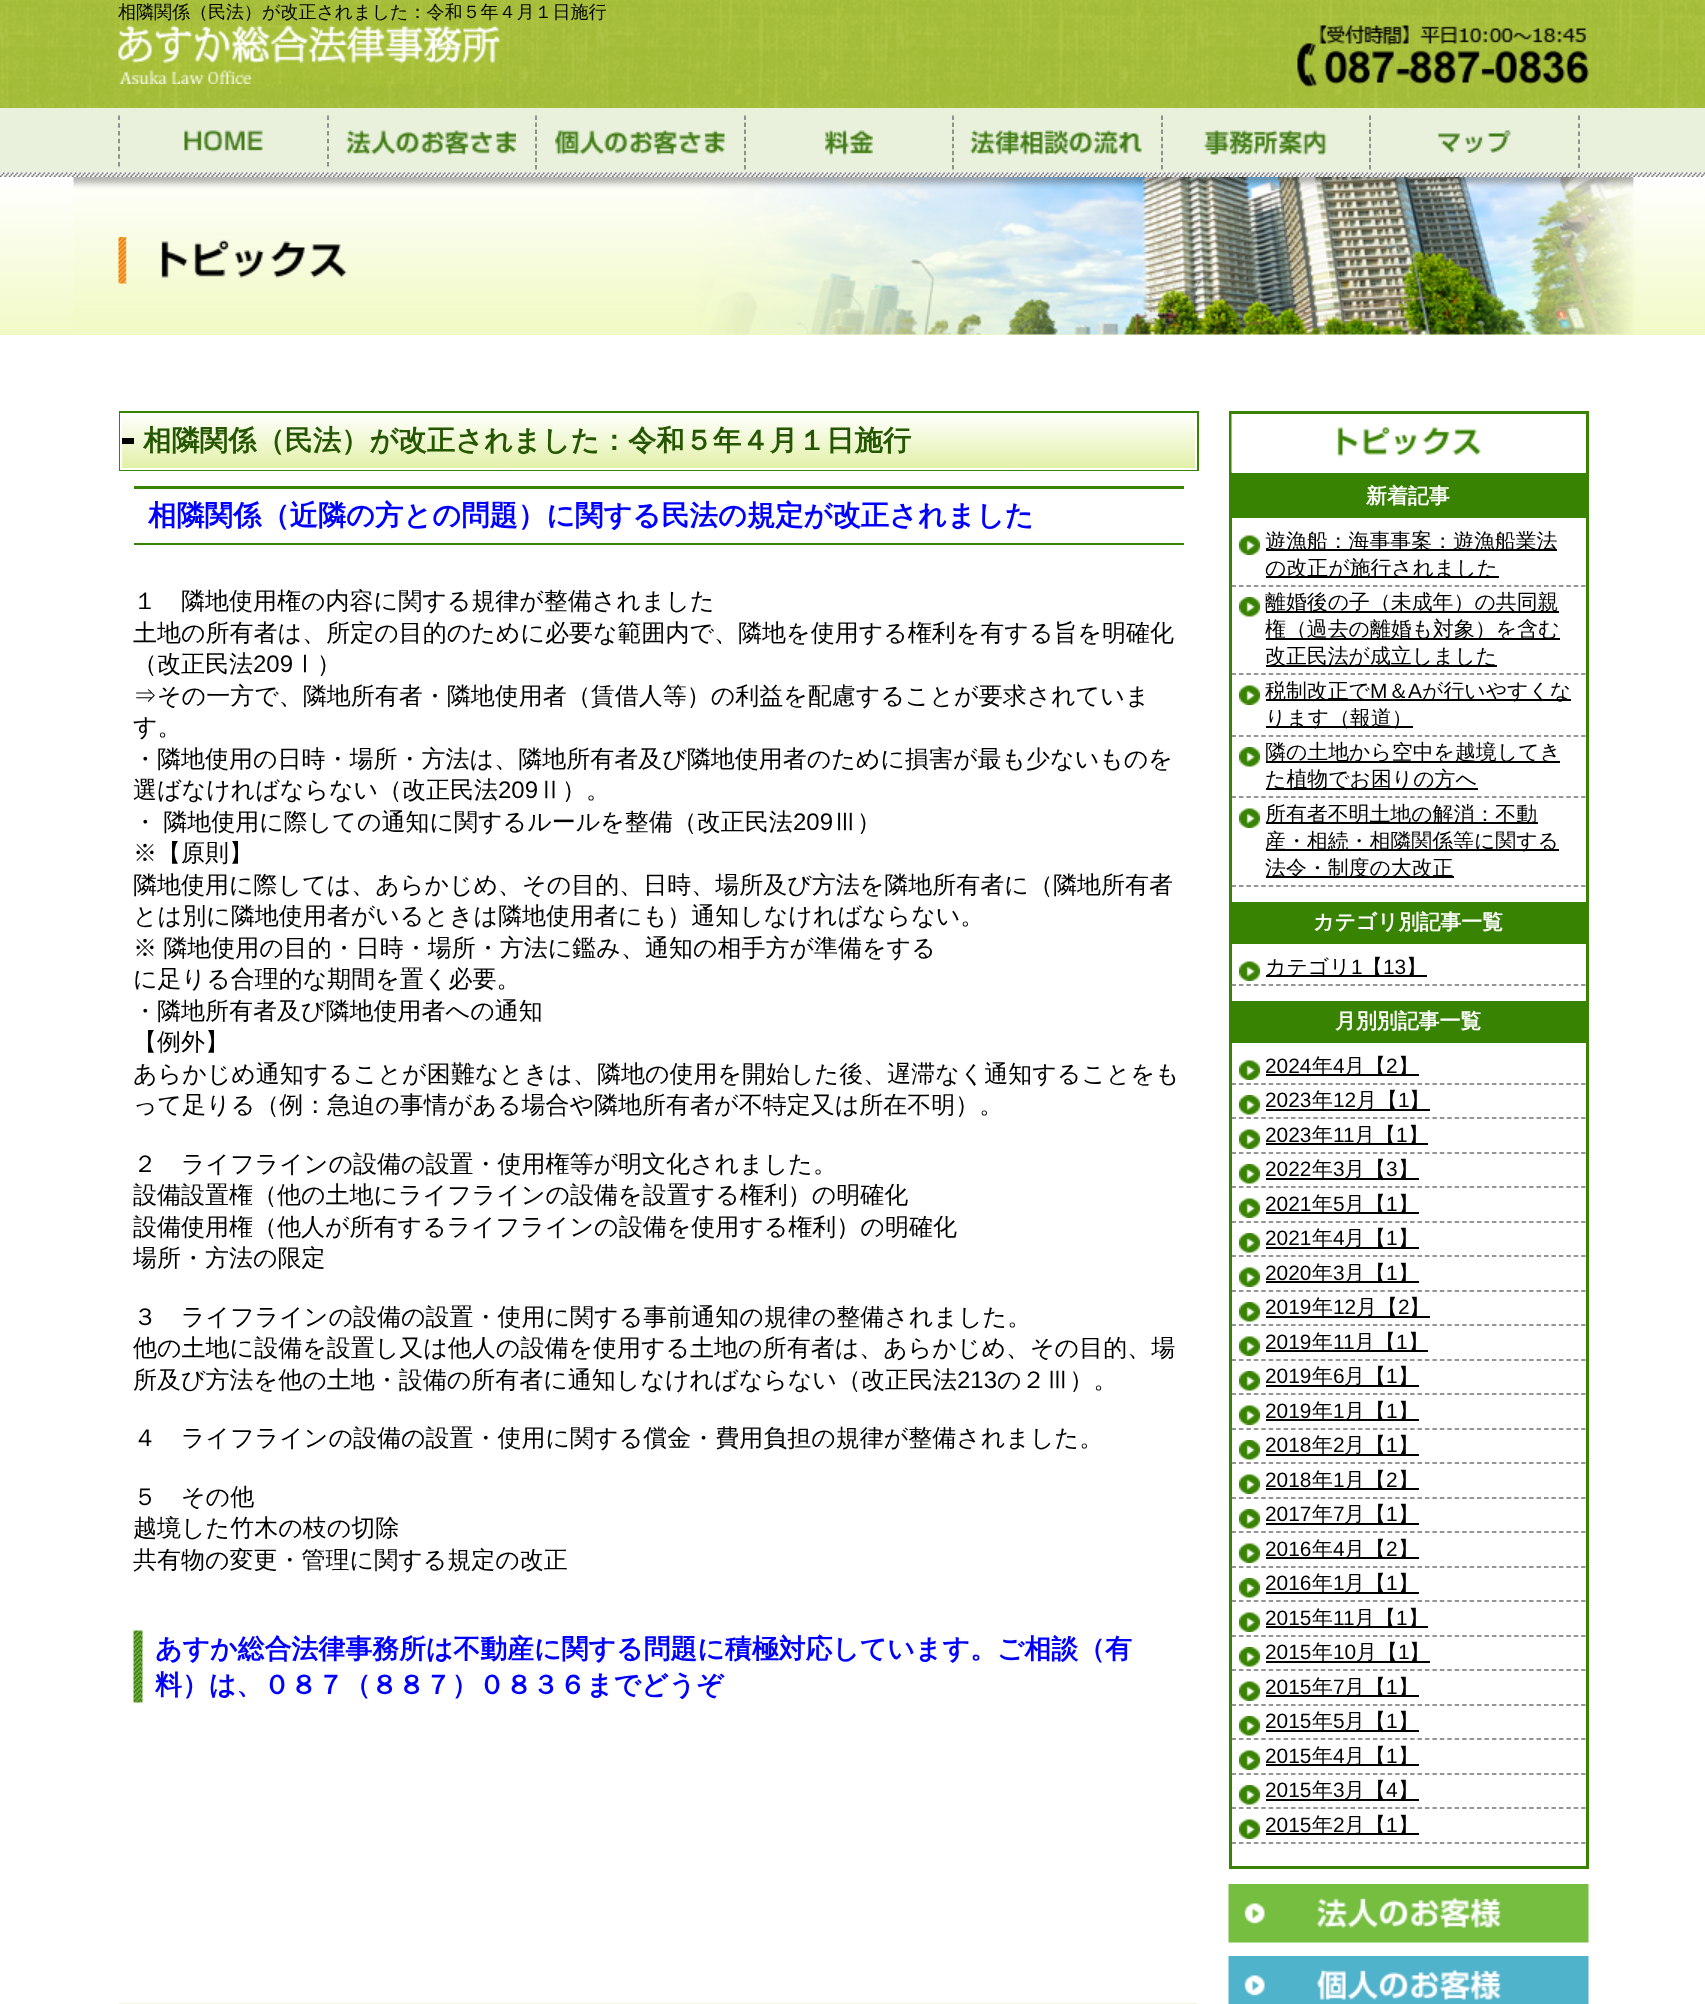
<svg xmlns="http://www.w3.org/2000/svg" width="1705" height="2004">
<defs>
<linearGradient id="g1" gradientUnits="userSpaceOnUse" x1="0" y1="177" x2="0" y2="335"><stop offset="0" stop-color="#fff"/><stop offset="1" stop-color="#f1fac6"/></linearGradient>
<linearGradient id="g2" gradientUnits="userSpaceOnUse" x1="120" y1="413" x2="120" y2="470"><stop offset="0" stop-color="#fff"/><stop offset="1" stop-color="#e1f0a5"/></linearGradient>
</defs>
<rect width="100%" height="100%" fill="#fff"/>
<image x="0" y="0" width="1705" height="108" href="media/1.png"/>
<text x="118" y="18" style="font-family:WenQuanYi Zen Hei;font-size:18px;font-weight:500;fill:#000">相隣関係（民法）が改正されました：令和５年４月１日施行</text>
<image x="118" y="25" width="382" height="59" href="media/2.png"/>
<image x="1297" y="25" width="292" height="62" href="media/3.png"/>
<rect y="108" width="1705" height="65" fill="#e9f0dc"/>
<image x="0" y="172" width="1705" height="5" href="media/4.png"/>
<path d="M328 115.5v51" fill="none" stroke="#737373" stroke-width="1.5" stroke-dasharray="4.5 3.25"/>
<path d="M119 115.5v51" fill="none" stroke="#737373" stroke-width="1.5" stroke-dasharray="4.5 3.25"/>
<image x="184" y="130" width="79" height="22" href="media/5.png"/>
<path d="M536 115.5v54" fill="none" stroke="#737373" stroke-width="1.5" stroke-dasharray="4.5 2.56"/>
<image x="346" y="130" width="170" height="25" href="media/6.png"/>
<path d="M745 115.5v54" fill="none" stroke="#737373" stroke-width="1.5" stroke-dasharray="4.5 2.56"/>
<image x="555" y="130" width="170" height="25" href="media/7.png"/>
<path d="M953 115.5v54" fill="none" stroke="#737373" stroke-width="1.5" stroke-dasharray="4.5 2.56"/>
<image x="825" y="130" width="48" height="25" href="media/8.png"/>
<path d="M1162 115.5v54" fill="none" stroke="#737373" stroke-width="1.5" stroke-dasharray="4.5 2.56"/>
<image x="970" y="130" width="172" height="25" href="media/9.png"/>
<path d="M1370 115.5v54" fill="none" stroke="#737373" stroke-width="1.5" stroke-dasharray="4.5 2.56"/>
<image x="1204" y="130" width="123" height="25" href="media/10.png"/>
<path d="M1579 115.5v52.5" fill="none" stroke="#737373" stroke-width="1.5" stroke-dasharray="4.5 3.5"/>
<image x="1438" y="130" width="73" height="23" href="media/11.png"/>
<rect y="184" width="1705" height="151" fill="url(#g1)"/>
<image x="73" y="177" width="1561" height="158" href="media/12.png"/>
<image x="118" y="237" width="229" height="47" href="media/13.png"/>
<rect x="122" y="415" width="1073" height="53" fill="url(#g2)"/>
<rect x="120" y="412" width="1078" height="58" fill="none" stroke="#388301" stroke-width="2"/>
<rect x="121" y="438" width="13" height="6" fill="#000"/>
<rect x="121" y="414" width="1075" height="55" fill="none" stroke="#fff" stroke-width="2"/>
<text x="143" y="450" style="font-family:WenQuanYi Zen Hei;font-size:28.3px;font-weight:bold;fill:#255700">相隣関係（民法）が改正されました：令和５年４月１日施行</text>
<rect x="134" y="486" width="1050" height="3" fill="#388301"/>
<rect x="134" y="543" width="1050" height="2" fill="#388301"/>
<text x="148" y="525" style="font-family:WenQuanYi Zen Hei;font-size:28.3px;font-weight:bold;fill:#00f">相隣関係（近隣の方との問題）に関する民法の規定が改正されました</text>
<text x="133" y="609" style="font-family:WenQuanYi Zen Hei;font-size:24px;font-weight:500;fill:#000">１　隣地使用権の内容に関する規律が整備されました</text>
<text x="133" y="641" style="font-family:WenQuanYi Zen Hei;font-size:24px;font-weight:500;fill:#000">土地の所有者は、所定の目的のために必要な範囲内で、隣地を使用する権利を有する旨を明確化</text>
<text x="133" y="672" style="font-family:WenQuanYi Zen Hei;font-size:24px;font-weight:500;fill:#000">（改正民法</text>
<text x="253" y="672" style="font-family:Liberation Sans;font-size:24px;fill:#000">209</text>
<text x="293" y="672" style="font-family:WenQuanYi Zen Hei;font-size:24px;font-weight:500;fill:#000">Ⅰ）</text>
<text x="133" y="704" style="font-family:WenQuanYi Zen Hei;font-size:24px;font-weight:500;fill:#000">⇒その一方で、隣地所有者・隣地使用者（賃借人等）の利益を配慮することが要求されていま</text>
<text x="133" y="735" style="font-family:WenQuanYi Zen Hei;font-size:24px;font-weight:500;fill:#000">す。</text>
<text x="133" y="767" style="font-family:WenQuanYi Zen Hei;font-size:24px;font-weight:500;fill:#000">・隣地使用の日時・場所・方法は、隣地所有者及び隣地使用者のために損害が最も少ないものを</text>
<text x="133" y="798" style="font-family:WenQuanYi Zen Hei;font-size:24px;font-weight:500;fill:#000">選ばなければならない（改正民法</text>
<text x="498" y="798" style="font-family:Liberation Sans;font-size:24px;fill:#000">209</text>
<text x="538" y="798" style="font-family:WenQuanYi Zen Hei;font-size:24px;font-weight:500;fill:#000">Ⅱ）。</text>
<text x="133" y="830" word-spacing="-1" style="font-family:WenQuanYi Zen Hei;font-size:24px;font-weight:500;fill:#000">・ 隣地使用に際しての通知に関するルールを整備（改正民法</text>
<text x="793" y="830" style="font-family:Liberation Sans;font-size:24px;fill:#000">209</text>
<text x="833" y="830" style="font-family:WenQuanYi Zen Hei;font-size:24px;font-weight:500;fill:#000">Ⅲ）</text>
<text x="133" y="861" style="font-family:WenQuanYi Zen Hei;font-size:24px;font-weight:500;fill:#000">※【原則】</text>
<text x="133" y="893" style="font-family:WenQuanYi Zen Hei;font-size:24px;font-weight:500;fill:#000">隣地使用に際しては、あらかじめ、その目的、日時、場所及び方法を隣地所有者に（隣地所有者</text>
<text x="133" y="924" style="font-family:WenQuanYi Zen Hei;font-size:24px;font-weight:500;fill:#000">とは別に隣地使用者がいるときは隣地使用者にも）通知しなければならない。</text>
<text x="133" y="956" word-spacing="-1" style="font-family:WenQuanYi Zen Hei;font-size:24px;font-weight:500;fill:#000">※ 隣地使用の目的・日時・場所・方法に鑑み、通知の相手方が準備をする</text>
<text x="133" y="987" style="font-family:WenQuanYi Zen Hei;font-size:24px;font-weight:500;fill:#000">に足りる合理的な期間を置く必要。</text>
<text x="133" y="1019" style="font-family:WenQuanYi Zen Hei;font-size:24px;font-weight:500;fill:#000">・隣地所有者及び隣地使用者への通知</text>
<text x="133" y="1050" style="font-family:WenQuanYi Zen Hei;font-size:24px;font-weight:500;fill:#000">【例外】</text>
<text x="133" y="1082" style="font-family:WenQuanYi Zen Hei;font-size:24px;font-weight:500;fill:#000">あらかじめ通知することが困難なときは、隣地の使用を開始した後、遅滞なく通知することをも</text>
<text x="133" y="1113" style="font-family:WenQuanYi Zen Hei;font-size:24px;font-weight:500;fill:#000">って足りる（例：急迫の事情がある場合や隣地所有者が不特定又は所在不明）。</text>
<text x="133" y="1172" style="font-family:WenQuanYi Zen Hei;font-size:24px;font-weight:500;fill:#000">２　ライフラインの設備の設置・使用権等が明文化されました。</text>
<text x="133" y="1203" style="font-family:WenQuanYi Zen Hei;font-size:24px;font-weight:500;fill:#000">設備設置権（他の土地にライフラインの設備を設置する権利）の明確化</text>
<text x="133" y="1235" style="font-family:WenQuanYi Zen Hei;font-size:24px;font-weight:500;fill:#000">設備使用権（他人が所有するライフラインの設備を使用する権利）の明確化</text>
<text x="133" y="1266" style="font-family:WenQuanYi Zen Hei;font-size:24px;font-weight:500;fill:#000">場所・方法の限定</text>
<text x="133" y="1325" style="font-family:WenQuanYi Zen Hei;font-size:24px;font-weight:500;fill:#000">３　ライフラインの設備の設置・使用に関する事前通知の規律の整備されました。</text>
<text x="133" y="1356" style="font-family:WenQuanYi Zen Hei;font-size:24px;font-weight:500;fill:#000">他の土地に設備を設置し又は他人の設備を使用する土地の所有者は、あらかじめ、その目的、場</text>
<text x="133" y="1388" style="font-family:WenQuanYi Zen Hei;font-size:24px;font-weight:500;fill:#000">所及び方法を他の土地・設備の所有者に通知しなければならない（改正民法</text>
<text x="957" y="1388" style="font-family:Liberation Sans;font-size:24px;fill:#000">213</text>
<text x="997" y="1388" style="font-family:WenQuanYi Zen Hei;font-size:24px;font-weight:500;fill:#000">の２Ⅲ）。</text>
<text x="133" y="1446" style="font-family:WenQuanYi Zen Hei;font-size:24px;font-weight:500;fill:#000">４　ライフラインの設備の設置・使用に関する償金・費用負担の規律が整備されました。</text>
<text x="133" y="1505" style="font-family:WenQuanYi Zen Hei;font-size:24px;font-weight:500;fill:#000">５　その他</text>
<text x="133" y="1536" style="font-family:WenQuanYi Zen Hei;font-size:24px;font-weight:500;fill:#000">越境した竹木の枝の切除</text>
<text x="133" y="1568" style="font-family:WenQuanYi Zen Hei;font-size:24px;font-weight:500;fill:#000">共有物の変更・管理に関する規定の改正</text>
<image x="133" y="1630" width="10" height="73" href="media/14.png"/>
<text x="155" y="1658" style="font-family:WenQuanYi Zen Hei;font-size:26.9px;font-weight:bold;fill:#00f">あすか総合法律事務所は不動産に関する問題に積極対応しています。ご相談（有</text>
<text x="155" y="1694" style="font-family:WenQuanYi Zen Hei;font-size:26.9px;font-weight:bold;fill:#00f">料）は、０８７（８８７）０８３６までどうぞ</text>
<image x="118" y="2002" width="1079" height="2" href="media/15.png"/>
<rect x="1230.5" y="412.5" width="357" height="1455" fill="none" stroke="#388301" stroke-width="3"/>
<rect x="1232" y="473" width="354" height="45" fill="#388301"/>
<image x="1231" y="414" width="250" height="59" href="media/16.png"/>
<text x="1366" y="503" style="font-family:WenQuanYi Zen Hei;font-size:20.9px;font-weight:bold;fill:#fff">新着記事</text>
<path d="M1231.5 586h354" fill="none" stroke="#737373" stroke-width="1.5" stroke-dasharray="4.5 2.94"/>
<image x="1239" y="535" width="21" height="20" href="media/17.png"/>
<rect x="1266" y="549" width="291" height="2" fill="#000"/>
<text x="1265" y="548" style="font-family:WenQuanYi Zen Hei;font-size:20.9px;font-weight:500;fill:#000">遊漁船：海事事案：遊漁船業法</text>
<rect x="1266" y="576" width="233" height="2" fill="#000"/>
<text x="1265" y="575" style="font-family:WenQuanYi Zen Hei;font-size:20.9px;font-weight:500;fill:#000">の改正が施行されました</text>
<path d="M1231.5 674h354" fill="none" stroke="#737373" stroke-width="1.5" stroke-dasharray="4.5 2.94"/>
<image x="1239" y="597" width="21" height="20" href="media/18.png"/>
<rect x="1266" y="611" width="293" height="2" fill="#000"/>
<text x="1265" y="609" style="font-family:WenQuanYi Zen Hei;font-size:20.9px;font-weight:500;fill:#000">離婚後の子（未成年）の共同親</text>
<rect x="1266" y="638" width="294" height="2" fill="#000"/>
<text x="1265" y="636" style="font-family:WenQuanYi Zen Hei;font-size:20.9px;font-weight:500;fill:#000">権（過去の離婚も対象）を含む</text>
<rect x="1266" y="665" width="231" height="2" fill="#000"/>
<text x="1265" y="663" style="font-family:WenQuanYi Zen Hei;font-size:20.9px;font-weight:500;fill:#000">改正民法が成立しました</text>
<path d="M1231.5 736h354" fill="none" stroke="#737373" stroke-width="1.5" stroke-dasharray="4.5 2.94"/>
<image x="1239" y="685" width="21" height="20" href="media/17.png"/>
<rect x="1266" y="699" width="305" height="2" fill="#000"/>
<text x="1265" y="698" style="font-family:WenQuanYi Zen Hei;font-size:20.9px;font-weight:500;fill:#000">税制改正で</text>
<text x="1370" y="698" style="font-family:Liberation Sans;font-size:20.9px;fill:#000">М</text>
<text x="1388" y="698" style="font-family:WenQuanYi Zen Hei;font-size:20.9px;font-weight:500;fill:#000">＆</text>
<text x="1408" y="698" style="font-family:Liberation Sans;font-size:20.9px;fill:#000">A</text>
<text x="1422" y="698" style="font-family:WenQuanYi Zen Hei;font-size:20.9px;font-weight:500;fill:#000">が行いやすくな</text>
<rect x="1266" y="726" width="147" height="2" fill="#000"/>
<text x="1265" y="725" style="font-family:WenQuanYi Zen Hei;font-size:20.9px;font-weight:500;fill:#000">ります（報道）</text>
<path d="M1231.5 797h354" fill="none" stroke="#737373" stroke-width="1.5" stroke-dasharray="4.5 2.94"/>
<image x="1239" y="747" width="21" height="20" href="media/18.png"/>
<rect x="1266" y="761" width="294" height="2" fill="#000"/>
<text x="1265" y="759" style="font-family:WenQuanYi Zen Hei;font-size:20.9px;font-weight:500;fill:#000">隣の土地から空中を越境してき</text>
<rect x="1266" y="788" width="212" height="2" fill="#000"/>
<text x="1265" y="786" style="font-family:WenQuanYi Zen Hei;font-size:20.9px;font-weight:500;fill:#000">た植物でお困りの方へ</text>
<path d="M1231.5 886h354" fill="none" stroke="#737373" stroke-width="1.5" stroke-dasharray="4.5 2.94"/>
<image x="1239" y="808" width="21" height="20" href="media/17.png"/>
<rect x="1266" y="822" width="272" height="2" fill="#000"/>
<text x="1265" y="821" style="font-family:WenQuanYi Zen Hei;font-size:20.9px;font-weight:500;fill:#000">所有者不明土地の解消：不動</text>
<rect x="1266" y="849" width="293" height="2" fill="#000"/>
<text x="1265" y="848" style="font-family:WenQuanYi Zen Hei;font-size:20.9px;font-weight:500;fill:#000">産・相続・相隣関係等に関する</text>
<rect x="1266" y="876" width="188" height="2" fill="#000"/>
<text x="1265" y="875" style="font-family:WenQuanYi Zen Hei;font-size:20.9px;font-weight:500;fill:#000">法令・制度の大改正</text>
<rect x="1232" y="902" width="354" height="42" fill="#388301"/>
<text x="1313" y="929" style="font-family:WenQuanYi Zen Hei;font-size:20.9px;font-weight:bold;fill:#fff">カテゴリ別記事一覧</text>
<path d="M1231.5 985h354" fill="none" stroke="#737373" stroke-width="1.5" stroke-dasharray="4.5 2.94"/>
<image x="1239" y="961" width="21" height="20" href="media/17.png"/>
<rect x="1266" y="975" width="161" height="2" fill="#000"/>
<text x="1265" y="974" style="font-family:WenQuanYi Zen Hei;font-size:20.9px;font-weight:500;fill:#000">カテゴリ</text>
<text x="1351" y="974" style="font-family:Liberation Sans;font-size:20.9px;fill:#000">1</text>
<text x="1362" y="974" style="font-family:WenQuanYi Zen Hei;font-size:20.9px;font-weight:500;fill:#000">【</text>
<text x="1383" y="974" style="font-family:Liberation Sans;font-size:20.9px;fill:#000">13</text>
<text x="1406" y="974" style="font-family:WenQuanYi Zen Hei;font-size:20.9px;font-weight:500;fill:#000">】</text>
<rect x="1232" y="1001" width="354" height="42" fill="#388301"/>
<text x="1335" y="1028" style="font-family:WenQuanYi Zen Hei;font-size:20.9px;font-weight:bold;fill:#fff">月別別記事一覧</text>
<path d="M1231.5 1084h354" fill="none" stroke="#737373" stroke-width="1.5" stroke-dasharray="4.5 2.94"/>
<image x="1239" y="1060" width="21" height="20" href="media/17.png"/>
<text x="1265" y="1073" style="font-family:Liberation Sans;font-size:20.9px;fill:#000">2024</text>
<rect x="1266" y="1074" width="153" height="2" fill="#000"/>
<text x="1312" y="1073" style="font-family:WenQuanYi Zen Hei;font-size:20.9px;font-weight:500;fill:#000">年</text>
<text x="1333" y="1073" style="font-family:Liberation Sans;font-size:20.9px;fill:#000">4</text>
<text x="1344" y="1073" style="font-family:WenQuanYi Zen Hei;font-size:20.9px;font-weight:500;fill:#000">月【</text>
<text x="1386" y="1073" style="font-family:Liberation Sans;font-size:20.9px;fill:#000">2</text>
<text x="1398" y="1073" style="font-family:WenQuanYi Zen Hei;font-size:20.9px;font-weight:500;fill:#000">】</text>
<path d="M1231.5 1118h354" fill="none" stroke="#737373" stroke-width="1.5" stroke-dasharray="4.5 2.94"/>
<image x="1239" y="1095" width="21" height="20" href="media/18.png"/>
<text x="1265" y="1107" style="font-family:Liberation Sans;font-size:20.9px;fill:#000">2023</text>
<rect x="1266" y="1109" width="164" height="2" fill="#000"/>
<text x="1312" y="1107" style="font-family:WenQuanYi Zen Hei;font-size:20.9px;font-weight:500;fill:#000">年</text>
<text x="1333" y="1107" style="font-family:Liberation Sans;font-size:20.9px;fill:#000">12</text>
<text x="1356" y="1107" style="font-family:WenQuanYi Zen Hei;font-size:20.9px;font-weight:500;fill:#000">月【</text>
<text x="1398" y="1107" style="font-family:Liberation Sans;font-size:20.9px;fill:#000">1</text>
<text x="1409" y="1107" style="font-family:WenQuanYi Zen Hei;font-size:20.9px;font-weight:500;fill:#000">】</text>
<path d="M1231.5 1153h354" fill="none" stroke="#737373" stroke-width="1.5" stroke-dasharray="4.5 2.94"/>
<image x="1239" y="1129" width="21" height="20" href="media/17.png"/>
<text x="1265" y="1142" style="font-family:Liberation Sans;font-size:20.9px;fill:#000">2023</text>
<rect x="1266" y="1143" width="162" height="2" fill="#000"/>
<text x="1312" y="1142" style="font-family:WenQuanYi Zen Hei;font-size:20.9px;font-weight:500;fill:#000">年</text>
<text x="1333" y="1142" style="font-family:Liberation Sans;font-size:20.9px;fill:#000">11</text>
<text x="1354" y="1142" style="font-family:WenQuanYi Zen Hei;font-size:20.9px;font-weight:500;fill:#000">月【</text>
<text x="1396" y="1142" style="font-family:Liberation Sans;font-size:20.9px;fill:#000">1</text>
<text x="1408" y="1142" style="font-family:WenQuanYi Zen Hei;font-size:20.9px;font-weight:500;fill:#000">】</text>
<path d="M1231.5 1187h354" fill="none" stroke="#737373" stroke-width="1.5" stroke-dasharray="4.5 2.94"/>
<image x="1239" y="1164" width="21" height="20" href="media/18.png"/>
<text x="1265" y="1176" style="font-family:Liberation Sans;font-size:20.9px;fill:#000">2022</text>
<rect x="1266" y="1178" width="153" height="2" fill="#000"/>
<text x="1312" y="1176" style="font-family:WenQuanYi Zen Hei;font-size:20.9px;font-weight:500;fill:#000">年</text>
<text x="1333" y="1176" style="font-family:Liberation Sans;font-size:20.9px;fill:#000">3</text>
<text x="1344" y="1176" style="font-family:WenQuanYi Zen Hei;font-size:20.9px;font-weight:500;fill:#000">月【</text>
<text x="1386" y="1176" style="font-family:Liberation Sans;font-size:20.9px;fill:#000">3</text>
<text x="1398" y="1176" style="font-family:WenQuanYi Zen Hei;font-size:20.9px;font-weight:500;fill:#000">】</text>
<path d="M1231.5 1222h354" fill="none" stroke="#737373" stroke-width="1.5" stroke-dasharray="4.5 2.94"/>
<image x="1239" y="1198" width="21" height="20" href="media/17.png"/>
<text x="1265" y="1211" style="font-family:Liberation Sans;font-size:20.9px;fill:#000">2021</text>
<rect x="1266" y="1212" width="153" height="2" fill="#000"/>
<text x="1312" y="1211" style="font-family:WenQuanYi Zen Hei;font-size:20.9px;font-weight:500;fill:#000">年</text>
<text x="1333" y="1211" style="font-family:Liberation Sans;font-size:20.9px;fill:#000">5</text>
<text x="1344" y="1211" style="font-family:WenQuanYi Zen Hei;font-size:20.9px;font-weight:500;fill:#000">月【</text>
<text x="1386" y="1211" style="font-family:Liberation Sans;font-size:20.9px;fill:#000">1</text>
<text x="1398" y="1211" style="font-family:WenQuanYi Zen Hei;font-size:20.9px;font-weight:500;fill:#000">】</text>
<path d="M1231.5 1256h354" fill="none" stroke="#737373" stroke-width="1.5" stroke-dasharray="4.5 2.94"/>
<image x="1239" y="1233" width="21" height="20" href="media/18.png"/>
<text x="1265" y="1245" style="font-family:Liberation Sans;font-size:20.9px;fill:#000">2021</text>
<rect x="1266" y="1247" width="153" height="2" fill="#000"/>
<text x="1312" y="1245" style="font-family:WenQuanYi Zen Hei;font-size:20.9px;font-weight:500;fill:#000">年</text>
<text x="1333" y="1245" style="font-family:Liberation Sans;font-size:20.9px;fill:#000">4</text>
<text x="1344" y="1245" style="font-family:WenQuanYi Zen Hei;font-size:20.9px;font-weight:500;fill:#000">月【</text>
<text x="1386" y="1245" style="font-family:Liberation Sans;font-size:20.9px;fill:#000">1</text>
<text x="1398" y="1245" style="font-family:WenQuanYi Zen Hei;font-size:20.9px;font-weight:500;fill:#000">】</text>
<path d="M1231.5 1291h354" fill="none" stroke="#737373" stroke-width="1.5" stroke-dasharray="4.5 2.94"/>
<image x="1239" y="1267" width="21" height="20" href="media/17.png"/>
<text x="1265" y="1280" style="font-family:Liberation Sans;font-size:20.9px;fill:#000">2020</text>
<rect x="1266" y="1281" width="153" height="2" fill="#000"/>
<text x="1312" y="1280" style="font-family:WenQuanYi Zen Hei;font-size:20.9px;font-weight:500;fill:#000">年</text>
<text x="1333" y="1280" style="font-family:Liberation Sans;font-size:20.9px;fill:#000">3</text>
<text x="1344" y="1280" style="font-family:WenQuanYi Zen Hei;font-size:20.9px;font-weight:500;fill:#000">月【</text>
<text x="1386" y="1280" style="font-family:Liberation Sans;font-size:20.9px;fill:#000">1</text>
<text x="1398" y="1280" style="font-family:WenQuanYi Zen Hei;font-size:20.9px;font-weight:500;fill:#000">】</text>
<path d="M1231.5 1325h354" fill="none" stroke="#737373" stroke-width="1.5" stroke-dasharray="4.5 2.94"/>
<image x="1239" y="1302" width="21" height="20" href="media/18.png"/>
<text x="1265" y="1314" style="font-family:Liberation Sans;font-size:20.9px;fill:#000">2019</text>
<rect x="1266" y="1316" width="164" height="2" fill="#000"/>
<text x="1312" y="1314" style="font-family:WenQuanYi Zen Hei;font-size:20.9px;font-weight:500;fill:#000">年</text>
<text x="1333" y="1314" style="font-family:Liberation Sans;font-size:20.9px;fill:#000">12</text>
<text x="1356" y="1314" style="font-family:WenQuanYi Zen Hei;font-size:20.9px;font-weight:500;fill:#000">月【</text>
<text x="1398" y="1314" style="font-family:Liberation Sans;font-size:20.9px;fill:#000">2</text>
<text x="1409" y="1314" style="font-family:WenQuanYi Zen Hei;font-size:20.9px;font-weight:500;fill:#000">】</text>
<path d="M1231.5 1360h354" fill="none" stroke="#737373" stroke-width="1.5" stroke-dasharray="4.5 2.94"/>
<image x="1239" y="1336" width="21" height="20" href="media/17.png"/>
<text x="1265" y="1349" style="font-family:Liberation Sans;font-size:20.9px;fill:#000">2019</text>
<rect x="1266" y="1350" width="162" height="2" fill="#000"/>
<text x="1312" y="1349" style="font-family:WenQuanYi Zen Hei;font-size:20.9px;font-weight:500;fill:#000">年</text>
<text x="1333" y="1349" style="font-family:Liberation Sans;font-size:20.9px;fill:#000">11</text>
<text x="1354" y="1349" style="font-family:WenQuanYi Zen Hei;font-size:20.9px;font-weight:500;fill:#000">月【</text>
<text x="1396" y="1349" style="font-family:Liberation Sans;font-size:20.9px;fill:#000">1</text>
<text x="1408" y="1349" style="font-family:WenQuanYi Zen Hei;font-size:20.9px;font-weight:500;fill:#000">】</text>
<path d="M1231.5 1394h354" fill="none" stroke="#737373" stroke-width="1.5" stroke-dasharray="4.5 2.94"/>
<image x="1239" y="1371" width="21" height="20" href="media/18.png"/>
<text x="1265" y="1383" style="font-family:Liberation Sans;font-size:20.9px;fill:#000">2019</text>
<rect x="1266" y="1385" width="153" height="2" fill="#000"/>
<text x="1312" y="1383" style="font-family:WenQuanYi Zen Hei;font-size:20.9px;font-weight:500;fill:#000">年</text>
<text x="1333" y="1383" style="font-family:Liberation Sans;font-size:20.9px;fill:#000">6</text>
<text x="1344" y="1383" style="font-family:WenQuanYi Zen Hei;font-size:20.9px;font-weight:500;fill:#000">月【</text>
<text x="1386" y="1383" style="font-family:Liberation Sans;font-size:20.9px;fill:#000">1</text>
<text x="1398" y="1383" style="font-family:WenQuanYi Zen Hei;font-size:20.9px;font-weight:500;fill:#000">】</text>
<path d="M1231.5 1429h354" fill="none" stroke="#737373" stroke-width="1.5" stroke-dasharray="4.5 2.94"/>
<image x="1239" y="1405" width="21" height="20" href="media/17.png"/>
<text x="1265" y="1418" style="font-family:Liberation Sans;font-size:20.9px;fill:#000">2019</text>
<rect x="1266" y="1419" width="153" height="2" fill="#000"/>
<text x="1312" y="1418" style="font-family:WenQuanYi Zen Hei;font-size:20.9px;font-weight:500;fill:#000">年</text>
<text x="1333" y="1418" style="font-family:Liberation Sans;font-size:20.9px;fill:#000">1</text>
<text x="1344" y="1418" style="font-family:WenQuanYi Zen Hei;font-size:20.9px;font-weight:500;fill:#000">月【</text>
<text x="1386" y="1418" style="font-family:Liberation Sans;font-size:20.9px;fill:#000">1</text>
<text x="1398" y="1418" style="font-family:WenQuanYi Zen Hei;font-size:20.9px;font-weight:500;fill:#000">】</text>
<path d="M1231.5 1463h354" fill="none" stroke="#737373" stroke-width="1.5" stroke-dasharray="4.5 2.94"/>
<image x="1239" y="1440" width="21" height="20" href="media/18.png"/>
<text x="1265" y="1452" style="font-family:Liberation Sans;font-size:20.9px;fill:#000">2018</text>
<rect x="1266" y="1454" width="153" height="2" fill="#000"/>
<text x="1312" y="1452" style="font-family:WenQuanYi Zen Hei;font-size:20.9px;font-weight:500;fill:#000">年</text>
<text x="1333" y="1452" style="font-family:Liberation Sans;font-size:20.9px;fill:#000">2</text>
<text x="1344" y="1452" style="font-family:WenQuanYi Zen Hei;font-size:20.9px;font-weight:500;fill:#000">月【</text>
<text x="1386" y="1452" style="font-family:Liberation Sans;font-size:20.9px;fill:#000">1</text>
<text x="1398" y="1452" style="font-family:WenQuanYi Zen Hei;font-size:20.9px;font-weight:500;fill:#000">】</text>
<path d="M1231.5 1498h354" fill="none" stroke="#737373" stroke-width="1.5" stroke-dasharray="4.5 2.94"/>
<image x="1239" y="1474" width="21" height="20" href="media/17.png"/>
<text x="1265" y="1487" style="font-family:Liberation Sans;font-size:20.9px;fill:#000">2018</text>
<rect x="1266" y="1488" width="153" height="2" fill="#000"/>
<text x="1312" y="1487" style="font-family:WenQuanYi Zen Hei;font-size:20.9px;font-weight:500;fill:#000">年</text>
<text x="1333" y="1487" style="font-family:Liberation Sans;font-size:20.9px;fill:#000">1</text>
<text x="1344" y="1487" style="font-family:WenQuanYi Zen Hei;font-size:20.9px;font-weight:500;fill:#000">月【</text>
<text x="1386" y="1487" style="font-family:Liberation Sans;font-size:20.9px;fill:#000">2</text>
<text x="1398" y="1487" style="font-family:WenQuanYi Zen Hei;font-size:20.9px;font-weight:500;fill:#000">】</text>
<path d="M1231.5 1532h354" fill="none" stroke="#737373" stroke-width="1.5" stroke-dasharray="4.5 2.94"/>
<image x="1239" y="1509" width="21" height="20" href="media/18.png"/>
<text x="1265" y="1521" style="font-family:Liberation Sans;font-size:20.9px;fill:#000">2017</text>
<rect x="1266" y="1523" width="153" height="2" fill="#000"/>
<text x="1312" y="1521" style="font-family:WenQuanYi Zen Hei;font-size:20.9px;font-weight:500;fill:#000">年</text>
<text x="1333" y="1521" style="font-family:Liberation Sans;font-size:20.9px;fill:#000">7</text>
<text x="1344" y="1521" style="font-family:WenQuanYi Zen Hei;font-size:20.9px;font-weight:500;fill:#000">月【</text>
<text x="1386" y="1521" style="font-family:Liberation Sans;font-size:20.9px;fill:#000">1</text>
<text x="1398" y="1521" style="font-family:WenQuanYi Zen Hei;font-size:20.9px;font-weight:500;fill:#000">】</text>
<path d="M1231.5 1567h354" fill="none" stroke="#737373" stroke-width="1.5" stroke-dasharray="4.5 2.94"/>
<image x="1239" y="1543" width="21" height="20" href="media/17.png"/>
<text x="1265" y="1556" style="font-family:Liberation Sans;font-size:20.9px;fill:#000">2016</text>
<rect x="1266" y="1557" width="153" height="2" fill="#000"/>
<text x="1312" y="1556" style="font-family:WenQuanYi Zen Hei;font-size:20.9px;font-weight:500;fill:#000">年</text>
<text x="1333" y="1556" style="font-family:Liberation Sans;font-size:20.9px;fill:#000">4</text>
<text x="1344" y="1556" style="font-family:WenQuanYi Zen Hei;font-size:20.9px;font-weight:500;fill:#000">月【</text>
<text x="1386" y="1556" style="font-family:Liberation Sans;font-size:20.9px;fill:#000">2</text>
<text x="1398" y="1556" style="font-family:WenQuanYi Zen Hei;font-size:20.9px;font-weight:500;fill:#000">】</text>
<path d="M1231.5 1601h354" fill="none" stroke="#737373" stroke-width="1.5" stroke-dasharray="4.5 2.94"/>
<image x="1239" y="1578" width="21" height="20" href="media/18.png"/>
<text x="1265" y="1590" style="font-family:Liberation Sans;font-size:20.9px;fill:#000">2016</text>
<rect x="1266" y="1592" width="153" height="2" fill="#000"/>
<text x="1312" y="1590" style="font-family:WenQuanYi Zen Hei;font-size:20.9px;font-weight:500;fill:#000">年</text>
<text x="1333" y="1590" style="font-family:Liberation Sans;font-size:20.9px;fill:#000">1</text>
<text x="1344" y="1590" style="font-family:WenQuanYi Zen Hei;font-size:20.9px;font-weight:500;fill:#000">月【</text>
<text x="1386" y="1590" style="font-family:Liberation Sans;font-size:20.9px;fill:#000">1</text>
<text x="1398" y="1590" style="font-family:WenQuanYi Zen Hei;font-size:20.9px;font-weight:500;fill:#000">】</text>
<path d="M1231.5 1636h354" fill="none" stroke="#737373" stroke-width="1.5" stroke-dasharray="4.5 2.94"/>
<image x="1239" y="1612" width="21" height="20" href="media/17.png"/>
<text x="1265" y="1625" style="font-family:Liberation Sans;font-size:20.9px;fill:#000">2015</text>
<rect x="1266" y="1626" width="162" height="2" fill="#000"/>
<text x="1312" y="1625" style="font-family:WenQuanYi Zen Hei;font-size:20.9px;font-weight:500;fill:#000">年</text>
<text x="1333" y="1625" style="font-family:Liberation Sans;font-size:20.9px;fill:#000">11</text>
<text x="1354" y="1625" style="font-family:WenQuanYi Zen Hei;font-size:20.9px;font-weight:500;fill:#000">月【</text>
<text x="1396" y="1625" style="font-family:Liberation Sans;font-size:20.9px;fill:#000">1</text>
<text x="1408" y="1625" style="font-family:WenQuanYi Zen Hei;font-size:20.9px;font-weight:500;fill:#000">】</text>
<path d="M1231.5 1670h354" fill="none" stroke="#737373" stroke-width="1.5" stroke-dasharray="4.5 2.94"/>
<image x="1239" y="1647" width="21" height="20" href="media/18.png"/>
<text x="1265" y="1659" style="font-family:Liberation Sans;font-size:20.9px;fill:#000">2015</text>
<rect x="1266" y="1661" width="164" height="2" fill="#000"/>
<text x="1312" y="1659" style="font-family:WenQuanYi Zen Hei;font-size:20.9px;font-weight:500;fill:#000">年</text>
<text x="1333" y="1659" style="font-family:Liberation Sans;font-size:20.9px;fill:#000">10</text>
<text x="1356" y="1659" style="font-family:WenQuanYi Zen Hei;font-size:20.9px;font-weight:500;fill:#000">月【</text>
<text x="1398" y="1659" style="font-family:Liberation Sans;font-size:20.9px;fill:#000">1</text>
<text x="1409" y="1659" style="font-family:WenQuanYi Zen Hei;font-size:20.9px;font-weight:500;fill:#000">】</text>
<path d="M1231.5 1705h354" fill="none" stroke="#737373" stroke-width="1.5" stroke-dasharray="4.5 2.94"/>
<image x="1239" y="1681" width="21" height="20" href="media/17.png"/>
<text x="1265" y="1694" style="font-family:Liberation Sans;font-size:20.9px;fill:#000">2015</text>
<rect x="1266" y="1695" width="153" height="2" fill="#000"/>
<text x="1312" y="1694" style="font-family:WenQuanYi Zen Hei;font-size:20.9px;font-weight:500;fill:#000">年</text>
<text x="1333" y="1694" style="font-family:Liberation Sans;font-size:20.9px;fill:#000">7</text>
<text x="1344" y="1694" style="font-family:WenQuanYi Zen Hei;font-size:20.9px;font-weight:500;fill:#000">月【</text>
<text x="1386" y="1694" style="font-family:Liberation Sans;font-size:20.9px;fill:#000">1</text>
<text x="1398" y="1694" style="font-family:WenQuanYi Zen Hei;font-size:20.9px;font-weight:500;fill:#000">】</text>
<path d="M1231.5 1739h354" fill="none" stroke="#737373" stroke-width="1.5" stroke-dasharray="4.5 2.94"/>
<image x="1239" y="1716" width="21" height="20" href="media/18.png"/>
<text x="1265" y="1728" style="font-family:Liberation Sans;font-size:20.9px;fill:#000">2015</text>
<rect x="1266" y="1730" width="153" height="2" fill="#000"/>
<text x="1312" y="1728" style="font-family:WenQuanYi Zen Hei;font-size:20.9px;font-weight:500;fill:#000">年</text>
<text x="1333" y="1728" style="font-family:Liberation Sans;font-size:20.9px;fill:#000">5</text>
<text x="1344" y="1728" style="font-family:WenQuanYi Zen Hei;font-size:20.9px;font-weight:500;fill:#000">月【</text>
<text x="1386" y="1728" style="font-family:Liberation Sans;font-size:20.9px;fill:#000">1</text>
<text x="1398" y="1728" style="font-family:WenQuanYi Zen Hei;font-size:20.9px;font-weight:500;fill:#000">】</text>
<path d="M1231.5 1774h354" fill="none" stroke="#737373" stroke-width="1.5" stroke-dasharray="4.5 2.94"/>
<image x="1239" y="1750" width="21" height="20" href="media/17.png"/>
<text x="1265" y="1763" style="font-family:Liberation Sans;font-size:20.9px;fill:#000">2015</text>
<rect x="1266" y="1764" width="153" height="2" fill="#000"/>
<text x="1312" y="1763" style="font-family:WenQuanYi Zen Hei;font-size:20.9px;font-weight:500;fill:#000">年</text>
<text x="1333" y="1763" style="font-family:Liberation Sans;font-size:20.9px;fill:#000">4</text>
<text x="1344" y="1763" style="font-family:WenQuanYi Zen Hei;font-size:20.9px;font-weight:500;fill:#000">月【</text>
<text x="1386" y="1763" style="font-family:Liberation Sans;font-size:20.9px;fill:#000">1</text>
<text x="1398" y="1763" style="font-family:WenQuanYi Zen Hei;font-size:20.9px;font-weight:500;fill:#000">】</text>
<path d="M1231.5 1808h354" fill="none" stroke="#737373" stroke-width="1.5" stroke-dasharray="4.5 2.94"/>
<image x="1239" y="1785" width="21" height="20" href="media/18.png"/>
<text x="1265" y="1797" style="font-family:Liberation Sans;font-size:20.9px;fill:#000">2015</text>
<rect x="1266" y="1799" width="153" height="2" fill="#000"/>
<text x="1312" y="1797" style="font-family:WenQuanYi Zen Hei;font-size:20.9px;font-weight:500;fill:#000">年</text>
<text x="1333" y="1797" style="font-family:Liberation Sans;font-size:20.9px;fill:#000">3</text>
<text x="1344" y="1797" style="font-family:WenQuanYi Zen Hei;font-size:20.9px;font-weight:500;fill:#000">月【</text>
<text x="1386" y="1797" style="font-family:Liberation Sans;font-size:20.9px;fill:#000">4</text>
<text x="1398" y="1797" style="font-family:WenQuanYi Zen Hei;font-size:20.9px;font-weight:500;fill:#000">】</text>
<path d="M1231.5 1843h354" fill="none" stroke="#737373" stroke-width="1.5" stroke-dasharray="4.5 2.94"/>
<image x="1239" y="1819" width="21" height="20" href="media/17.png"/>
<text x="1265" y="1832" style="font-family:Liberation Sans;font-size:20.9px;fill:#000">2015</text>
<rect x="1266" y="1833" width="153" height="2" fill="#000"/>
<text x="1312" y="1832" style="font-family:WenQuanYi Zen Hei;font-size:20.9px;font-weight:500;fill:#000">年</text>
<text x="1333" y="1832" style="font-family:Liberation Sans;font-size:20.9px;fill:#000">2</text>
<text x="1344" y="1832" style="font-family:WenQuanYi Zen Hei;font-size:20.9px;font-weight:500;fill:#000">月【</text>
<text x="1386" y="1832" style="font-family:Liberation Sans;font-size:20.9px;fill:#000">1</text>
<text x="1398" y="1832" style="font-family:WenQuanYi Zen Hei;font-size:20.9px;font-weight:500;fill:#000">】</text>
<image x="1228" y="1884" width="361" height="59" href="media/19.png"/>
<image x="1228" y="1956" width="361" height="48" href="media/20.png"/>
</svg>
